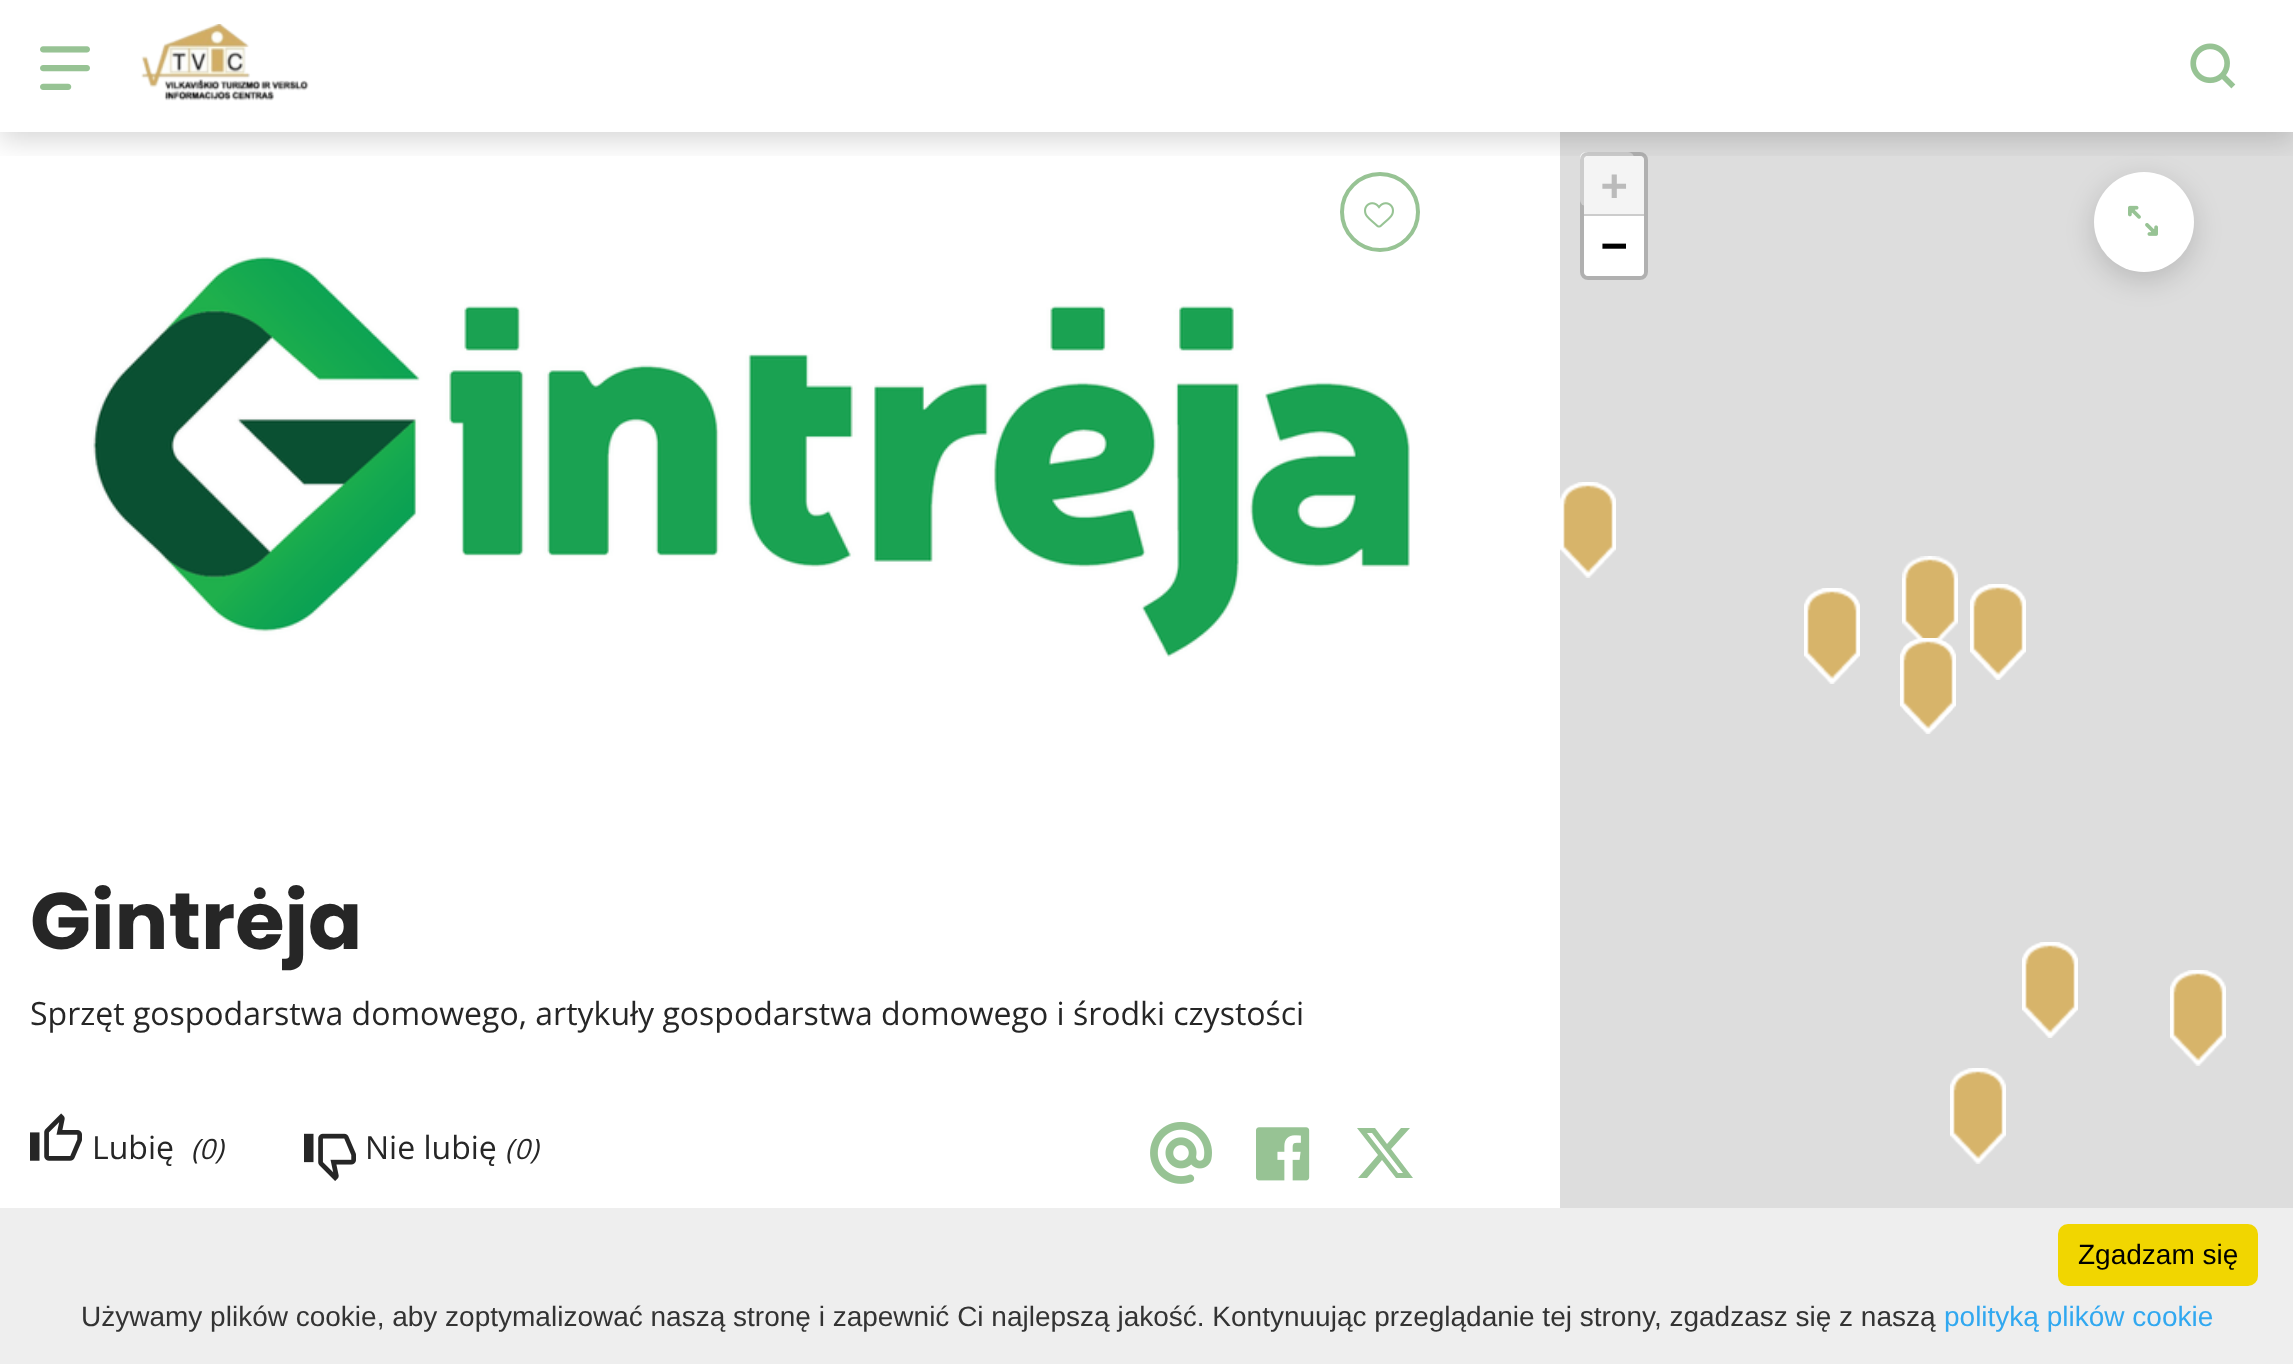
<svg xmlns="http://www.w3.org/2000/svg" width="2293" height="1364">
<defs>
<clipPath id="clip1"><rect x="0" y="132" width="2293" height="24"/></clipPath>
</defs>
<rect width="100%" height="100%" fill="#fff"/>
<rect x="1560" y="132" width="733" height="1076" fill="#ddd"/>
<rect x="1580" y="152" width="54" height="54" rx="6" fill="#fff"/>
<rect x="1582" y="154" width="64" height="124" rx="6" fill="none" stroke="#00000033" stroke-width="4"/>
<path d="M1588 156h52c2 0 4 2 4 4v56h-60v-56c0-2 2-4 4-4z" fill="#f4f4f4"/>
<rect x="2094" y="180" width="100" height="100" rx="50" fill="#00000029" filter="blur(14px)"/>
<circle cx="2144" cy="222" r="50" fill="#fff"/>
<circle cx="1380" cy="212" r="38" fill="none" stroke="#97c394" stroke-width="4"/>
<g clip-path="url(#clip1)">
<rect y="8" width="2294" height="132" fill="#00000029" filter="blur(14px)"/>
</g>
<image x="40" y="46" width="50" height="44" href="media/1.png"/>
<image x="141" y="24" width="168" height="77" href="media/2.png"/>
<image x="2190" y="43" width="46" height="46" href="media/3.png"/>
<rect x="1584" y="214" width="60" height="2" fill="#ccc"/>
<text x="1601" y="200" style="font-family:DejaVu Sans Mono;font-size:44px;font-weight:bold;fill:#bbb">+</text>
<path d="M1584 216h60v56c0 2-2 4-4 4h-52c-2 0-4-2-4-4z" fill="#fff"/>
<text x="1601" y="260" style="font-family:DejaVu Sans Mono;font-size:44px;font-weight:bold;fill:#000">−</text>
<image x="1560" y="482" width="56" height="96" href="media/4.png"/>
<image x="1560" y="482" width="56" height="96" href="media/5.png"/>
<image x="1902" y="556" width="56" height="87" href="media/6.png"/>
<image x="1970" y="584" width="56" height="96" href="media/4.png"/>
<image x="1970" y="584" width="56" height="96" href="media/5.png"/>
<image x="1804" y="588" width="56" height="96" href="media/4.png"/>
<image x="1970" y="584" width="56" height="96" href="media/7.png"/>
<image x="1804" y="588" width="56" height="96" href="media/5.png"/>
<image x="1804" y="588" width="56" height="96" href="media/7.png"/>
<image x="1900" y="638" width="56" height="96" href="media/8.png"/>
<image x="1900" y="638" width="56" height="96" href="media/9.png"/>
<image x="1900" y="638" width="56" height="96" href="media/10.png"/>
<image x="1934" y="638" width="4" height="1" href="media/12.png"/>
<image x="1903" y="638" width="50" height="91" href="media/11.png"/>
<image x="1903" y="641" width="50" height="88" href="media/13.png"/>
<image x="2022" y="942" width="56" height="96" href="media/4.png"/>
<image x="2022" y="942" width="56" height="96" href="media/5.png"/>
<image x="2022" y="942" width="56" height="96" href="media/7.png"/>
<image x="2170" y="970" width="56" height="96" href="media/4.png"/>
<image x="2170" y="970" width="56" height="96" href="media/5.png"/>
<image x="1950" y="1068" width="56" height="96" href="media/4.png"/>
<image x="1950" y="1068" width="56" height="96" href="media/5.png"/>
<image x="2128" y="205" width="30" height="31" href="media/14.png"/>
<image x="1364" y="202" width="30" height="26" href="media/15.png"/>
<image x="91" y="256" width="1319" height="401" href="media/16.png"/>
<text x="30" y="949" style="font-family:Poppins;font-size:80px;font-weight:bold;fill:#262626">Gintrėja</text>
<text x="30" y="1025" style="font-family:Open Sans;font-size:32px;fill:#262626">Sprzęt gospodarstwa domowego, artykuły gospodarstwa domowego i środki czystości</text>
<image x="30" y="1113" width="52" height="48" href="media/17.png"/>
<text x="92" y="1159" style="font-family:Open Sans;font-size:32px;fill:#262626">Lubię</text>
<text x="191" y="1159" style="font-family:Open Sans;font-size:28px;font-style:italic;fill:#262626">(</text>
<text x="215" y="1159" style="font-family:Open Sans;font-size:28px;font-style:italic;fill:#262626">)</text>
<text x="199" y="1159" style="font-family:Open Sans;font-size:28px;font-style:italic;fill:#262626">0</text>
<image x="304" y="1133" width="52" height="48" href="media/18.png"/>
<text x="365" y="1159" style="font-family:Open Sans;font-size:32px;fill:#262626">Nie lubię</text>
<text x="505" y="1159" style="font-family:Open Sans;font-size:28px;font-style:italic;fill:#262626">(</text>
<text x="530" y="1159" style="font-family:Open Sans;font-size:28px;font-style:italic;fill:#262626">)</text>
<text x="514" y="1159" style="font-family:Open Sans;font-size:28px;font-style:italic;fill:#262626">0</text>
<image x="1150" y="1121" width="62" height="63" href="media/19.png"/>
<image x="1256" y="1127" width="54" height="54" href="media/20.png"/>
<path d="M1401 1128h9l-19 21l22 29h-17l-14-18l-15 18h-9l20-23l-21-27h18l12 16zm-3 45h5l-31-40h-5z" fill="#97c394"/>
<rect y="1208" width="2293" height="156" fill="#eee"/>
<rect x="2058" y="1224" width="200" height="62" rx="10" fill="#f1d600"/>
<text x="2078" y="1264" style="font-family:Liberation Sans;font-size:28px;fill:#000">Zgadzam się</text>
<text x="81" y="1326" style="font-family:Liberation Sans;font-size:28px;fill:#333">Używamy plików cookie, aby zoptymalizować naszą stronę i zapewnić Ci najlepszą jakość. Kontynuując przeglądanie tej strony, zgadzasz się z naszą</text>
<text x="1944" y="1326" style="font-family:Liberation Sans;font-size:28px;fill:#31a8f0">polityką plików cookie</text>
</svg>
